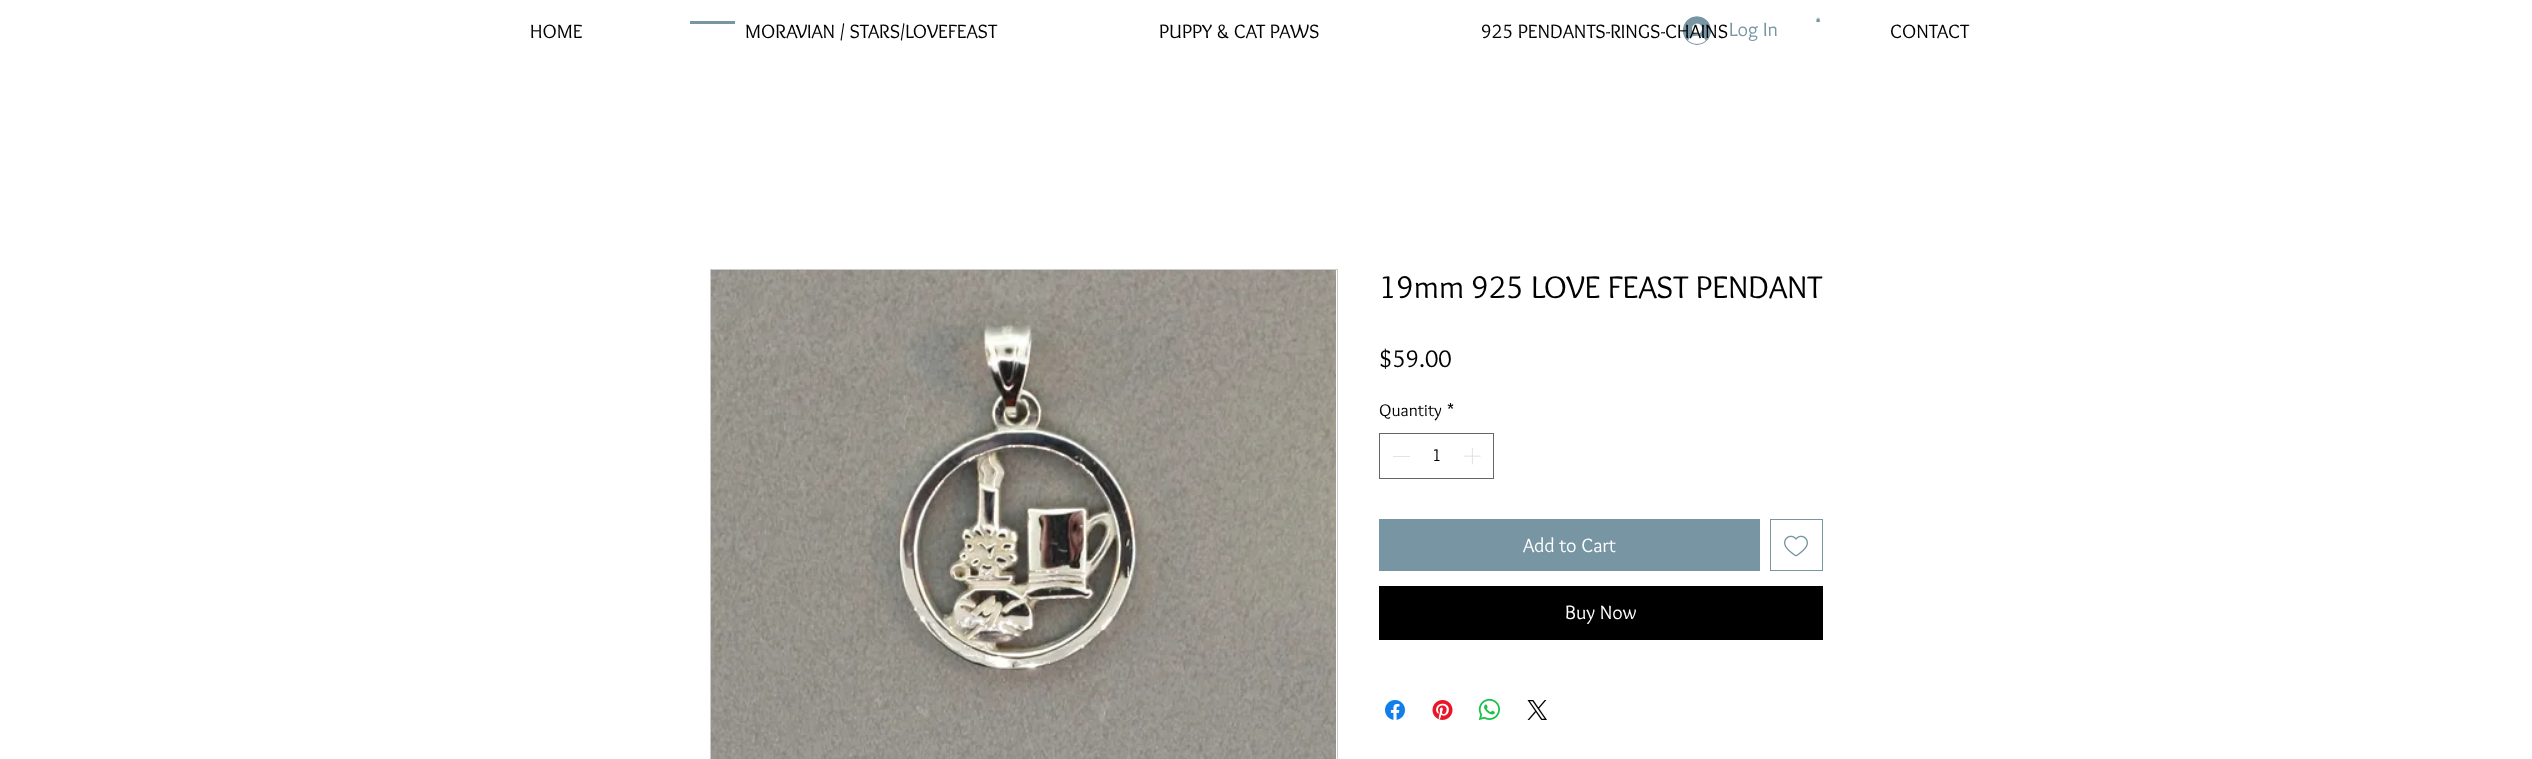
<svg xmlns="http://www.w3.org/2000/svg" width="2532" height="759">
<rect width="100%" height="100%" fill="#fff"/>
<image x="1816" y="17" width="4" height="5" href="media/1.png"/>
<rect x="690" y="21" width="45" height="3" fill="#7795a3"/>
<image x="1683" y="16" width="28" height="29" href="media/2.png"/>
<text x="1729" y="36" style="font-family:Overlock;font-size:20px;fill:#7795a3">Log In</text>
<text x="530" y="38" style="font-family:Overlock;font-size:20px;fill:#000">HOME</text>
<text x="745" y="38" style="font-family:Overlock;font-size:20px;fill:#000">MORAVIAN / STARS/LOVEFEAST</text>
<text x="1159" y="38" style="font-family:Overlock;font-size:20px;fill:#000">PUPPY &amp; CAT PAWS</text>
<text x="1481" y="38" style="font-family:Overlock;font-size:20px;fill:#000">925 PENDANTS-RINGS-CHAINS</text>
<text x="1890" y="38" style="font-family:Overlock;font-size:20px;fill:#000">CONTACT</text>
<rect x="710.5" y="269.5" width="627" height="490" fill="none" stroke="#ccc"/>
<image x="711" y="270" width="625" height="489" href="media/3.png"/>
<text x="1379" y="298" style="font-family:Overlock;font-size:32.5px;fill:#000">19mm 925 LOVE FEAST PENDANT</text>
<text x="1379" y="367" style="font-family:Overlock;font-size:25px;fill:#000">$59.00</text>
<text x="1379" y="416" style="font-family:Overlock;font-size:17.5px;fill:#000">Quantity</text>
<text x="1447" y="416" style="font-family:Overlock;font-size:17.5px;fill:#000">*</text>
<rect x="1379.5" y="433.5" width="114" height="45" fill="none" stroke="#666"/>
<rect x="1393" y="456" width="17" height="1" fill="#e3e3e3"/>
<text x="1432" y="461" style="font-family:Overlock;font-size:17.5px;fill:#000">1</text>
<image x="1464" y="448" width="17" height="17" href="media/4.png"/>
<rect x="1379" y="519" width="381" height="52" fill="#7795a3"/>
<text x="1523" y="552" style="font-family:Overlock;font-size:20px;fill:#fff">Add to Cart</text>
<rect x="1770.5" y="519.5" width="52" height="51" fill="none" stroke="#7795a3"/>
<image x="1784" y="535" width="24" height="22" href="media/5.png"/>
<rect x="1379" y="586" width="444" height="54" fill="#000"/>
<text x="1565" y="619" style="font-family:Overlock;font-size:20px;fill:#fff">Buy Now</text>
<image x="1385" y="700" width="20" height="20" href="media/6.png"/>
<image x="1432" y="700" width="21" height="20" href="media/7.png"/>
<image x="1478" y="698" width="22" height="22" href="media/8.png"/>
<image x="1527" y="700" width="20" height="20" href="media/9.png"/>
</svg>
